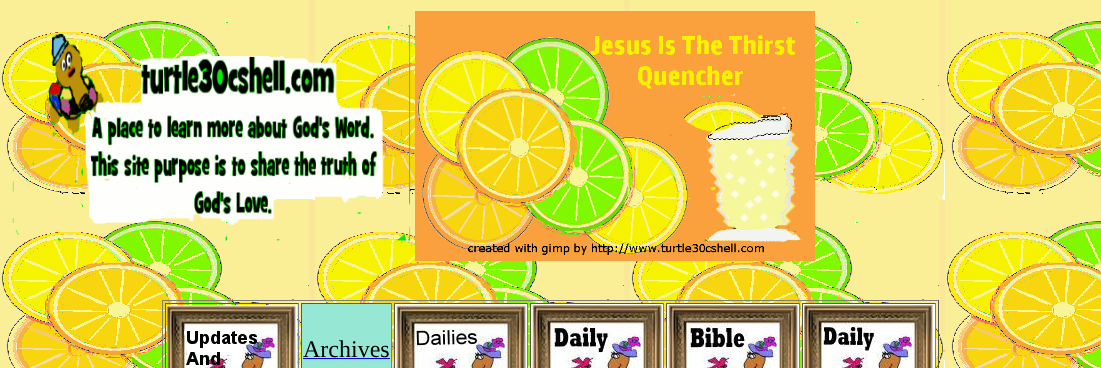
<svg xmlns="http://www.w3.org/2000/svg" width="1101" height="368">
<rect width="100%" height="100%" fill="#fff"/>
<image x="0" y="0" width="1101" height="368" href="media/1.png"/>
<image x="12" y="25" width="399" height="216" href="media/2.png"/>
<image x="415" y="11" width="400" height="250" href="media/3.png"/>
<rect x="162" y="300" width="777" height="1" fill="#808080"/>
<rect x="938" y="300" width="1" height="68" fill="#555"/>
<rect x="162" y="300" width="1" height="68" fill="#808080"/>
<rect x="165" y="303" width="134" height="1" fill="#555"/>
<rect x="298" y="303" width="1" height="65" fill="#808080"/>
<rect x="165" y="303" width="1" height="65" fill="#555"/>
<image x="167" y="305" width="130" height="63" href="media/4.png"/>
<rect x="302" y="304" width="89" height="64" fill="#97e7d5"/>
<rect x="301" y="303" width="91" height="1" fill="#555"/>
<rect x="391" y="303" width="1" height="65" fill="#808080"/>
<rect x="301" y="303" width="1" height="65" fill="#555"/>
<text x="303" y="357" style="font-family:Liberation Serif;font-size:24px;fill:#000">Archives</text>
<rect x="303" y="358" width="87" height="1" fill="#00e"/>
<rect x="395" y="304" width="132" height="64" fill="#fff"/>
<rect x="394" y="303" width="134" height="1" fill="#555"/>
<rect x="527" y="303" width="1" height="65" fill="#808080"/>
<rect x="394" y="303" width="1" height="65" fill="#555"/>
<image x="396" y="305" width="130" height="63" href="media/5.png"/>
<rect x="531" y="304" width="132" height="64" fill="#fff"/>
<rect x="530" y="303" width="134" height="1" fill="#555"/>
<rect x="663" y="303" width="1" height="65" fill="#808080"/>
<rect x="530" y="303" width="1" height="65" fill="#555"/>
<image x="532" y="305" width="130" height="63" href="media/6.png"/>
<rect x="667" y="304" width="132" height="64" fill="#fff"/>
<rect x="666" y="303" width="134" height="1" fill="#555"/>
<rect x="799" y="303" width="1" height="65" fill="#808080"/>
<rect x="666" y="303" width="1" height="65" fill="#555"/>
<image x="668" y="305" width="130" height="63" href="media/7.png"/>
<rect x="803" y="304" width="132" height="64" fill="#fff"/>
<rect x="802" y="303" width="134" height="1" fill="#555"/>
<rect x="935" y="303" width="1" height="65" fill="#808080"/>
<rect x="802" y="303" width="1" height="65" fill="#555"/>
<image x="804" y="305" width="129" height="63" href="media/8.png"/>
</svg>
